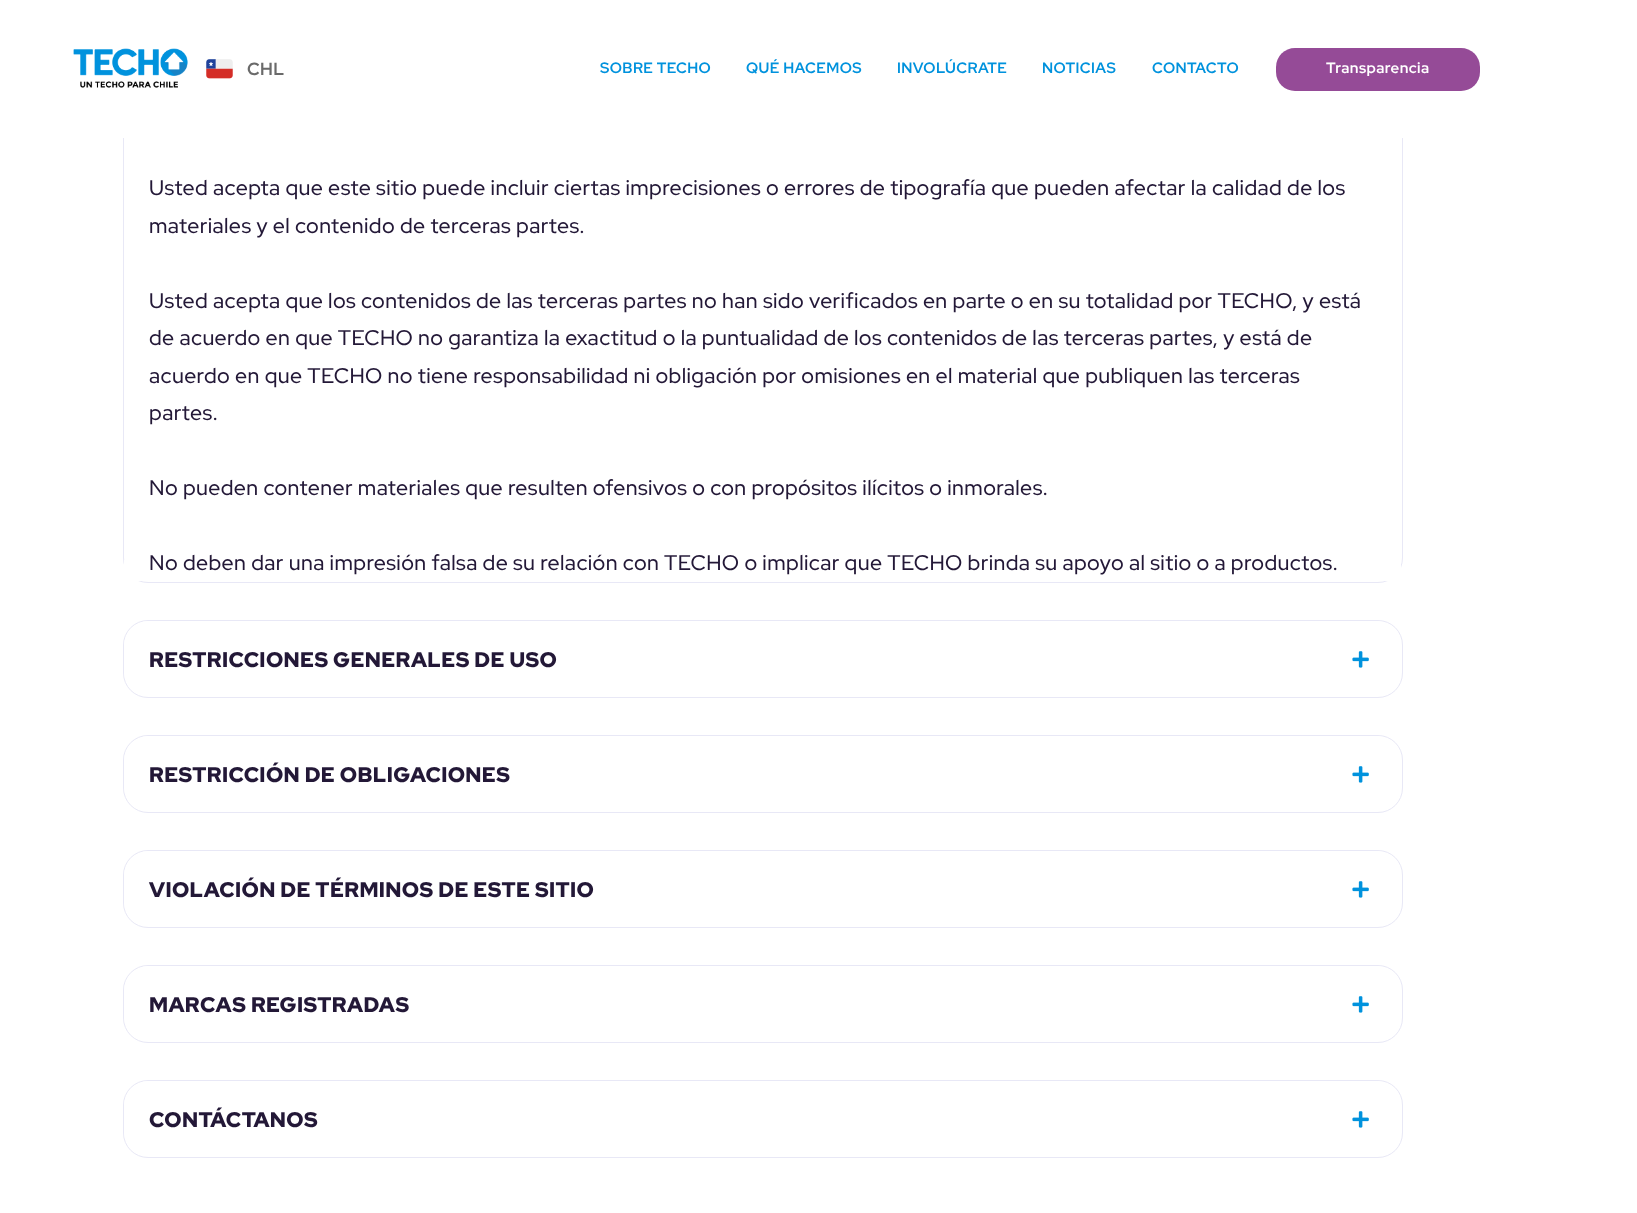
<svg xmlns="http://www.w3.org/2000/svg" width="1637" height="1213">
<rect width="100%" height="100%" fill="#fff"/>
<rect x="123.5" y="-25.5" width="1279" height="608" rx="24.5" fill="none" stroke="#e8e8f6"/>
<rect x="123" width="1280" height="138" fill="#fff"/>
<image x="73" y="48" width="115" height="40" href="media/1.png"/>
<image x="206" y="59" width="27" height="20" href="media/2.png"/>
<text x="247" y="75" style="font-family:Red Hat Display;font-size:17.5px;font-weight:bold;letter-spacing:0.4px;fill:#6a6a6a">CHL</text>
<text x="600" y="73" style="font-family:Red Hat Display;font-size:15px;font-weight:bold;letter-spacing:0.4px;fill:#0092dd">SOBRE TECHO</text>
<text x="746" y="73" style="font-family:Red Hat Display;font-size:15px;font-weight:bold;letter-spacing:0.4px;fill:#0092dd">QUÉ HACEMOS</text>
<text x="897" y="73" style="font-family:Red Hat Display;font-size:15px;font-weight:bold;letter-spacing:0.4px;fill:#0092dd">INVOLÚCRATE</text>
<text x="1042" y="73" style="font-family:Red Hat Display;font-size:15px;font-weight:bold;letter-spacing:0.4px;fill:#0092dd">NOTICIAS</text>
<text x="1152" y="73" style="font-family:Red Hat Display;font-size:15px;font-weight:bold;letter-spacing:0.4px;fill:#0092dd">CONTACTO</text>
<rect x="1276" y="48" width="204" height="43" rx="19" fill="#954b97"/>
<text x="1326" y="73" style="font-family:Red Hat Display;font-size:15px;font-weight:bold;letter-spacing:0.4px;fill:#fff">Transparencia</text>
<rect x="124" y="560" width="1277" height="21" fill="#fff"/>
<text x="149" y="195" style="font-family:Red Hat Display;font-size:21.25px;font-weight:500;letter-spacing:0.4px;fill:#231837">Usted acepta que este sitio puede incluir ciertas imprecisiones o errores de tipografía que pueden afectar la calidad de los</text>
<text x="149" y="233" style="font-family:Red Hat Display;font-size:21.25px;font-weight:500;letter-spacing:0.4px;fill:#231837">materiales y el contenido de terceras partes.</text>
<text x="149" y="308" style="font-family:Red Hat Display;font-size:21.25px;font-weight:500;letter-spacing:0.4px;fill:#231837">Usted acepta que los contenidos de las terceras partes no han sido verificados en parte o en su totalidad por TECHO, y está</text>
<text x="149" y="345" style="font-family:Red Hat Display;font-size:21.25px;font-weight:500;letter-spacing:0.4px;fill:#231837">de acuerdo en que TECHO no garantiza la exactitud o la puntualidad de los contenidos de las terceras partes, y está de</text>
<text x="149" y="383" style="font-family:Red Hat Display;font-size:21.25px;font-weight:500;letter-spacing:0.4px;fill:#231837">acuerdo en que TECHO no tiene responsabilidad ni obligación por omisiones en el material que publiquen las terceras</text>
<text x="149" y="420" style="font-family:Red Hat Display;font-size:21.25px;font-weight:500;letter-spacing:0.4px;fill:#231837">partes.</text>
<text x="149" y="495" style="font-family:Red Hat Display;font-size:21.25px;font-weight:500;letter-spacing:0.4px;fill:#231837">No pueden contener materiales que resulten ofensivos o con propósitos ilícitos o inmorales.</text>
<text x="149" y="570" style="font-family:Red Hat Display;font-size:21.25px;font-weight:500;letter-spacing:0.4px;fill:#231837">No deben dar una impresión falsa de su relación con TECHO o implicar que TECHO brinda su apoyo al sitio o a productos.</text>
<rect x="123.5" y="620.5" width="1279" height="77" rx="24.5" fill="none" stroke="#e8e8f6"/>
<rect x="124" y="621" width="1277" height="75" rx="25" fill="#fff"/>
<text x="149" y="667" style="font-family:Red Hat Display;font-size:21.25px;font-weight:900;letter-spacing:0.4px;fill:#231837">RESTRICCIONES GENERALES DE USO</text>
<image x="1352" y="651" width="17" height="17" href="media/3.png"/>
<rect x="123.5" y="735.5" width="1279" height="77" rx="24.5" fill="none" stroke="#e8e8f6"/>
<rect x="124" y="736" width="1277" height="75" rx="25" fill="#fff"/>
<text x="149" y="782" style="font-family:Red Hat Display;font-size:21.25px;font-weight:900;letter-spacing:0.4px;fill:#231837">RESTRICCIÓN DE OBLIGACIONES</text>
<image x="1352" y="766" width="17" height="17" href="media/3.png"/>
<rect x="123.5" y="850.5" width="1279" height="77" rx="24.5" fill="none" stroke="#e8e8f6"/>
<rect x="124" y="851" width="1277" height="75" rx="25" fill="#fff"/>
<text x="149" y="897" style="font-family:Red Hat Display;font-size:21.25px;font-weight:900;letter-spacing:0.4px;fill:#231837">VIOLACIÓN DE TÉRMINOS DE ESTE SITIO</text>
<image x="1352" y="881" width="17" height="17" href="media/3.png"/>
<rect x="123.5" y="965.5" width="1279" height="77" rx="24.5" fill="none" stroke="#e8e8f6"/>
<rect x="124" y="966" width="1277" height="75" rx="25" fill="#fff"/>
<text x="149" y="1012" style="font-family:Red Hat Display;font-size:21.25px;font-weight:900;letter-spacing:0.4px;fill:#231837">MARCAS REGISTRADAS</text>
<image x="1352" y="996" width="17" height="17" href="media/3.png"/>
<rect x="123.5" y="1080.5" width="1279" height="77" rx="24.5" fill="none" stroke="#e8e8f6"/>
<rect x="124" y="1081" width="1277" height="75" rx="25" fill="#fff"/>
<text x="149" y="1127" style="font-family:Red Hat Display;font-size:21.25px;font-weight:900;letter-spacing:0.4px;fill:#231837">CONTÁCTANOS</text>
<image x="1352" y="1111" width="17" height="17" href="media/3.png"/>
</svg>
